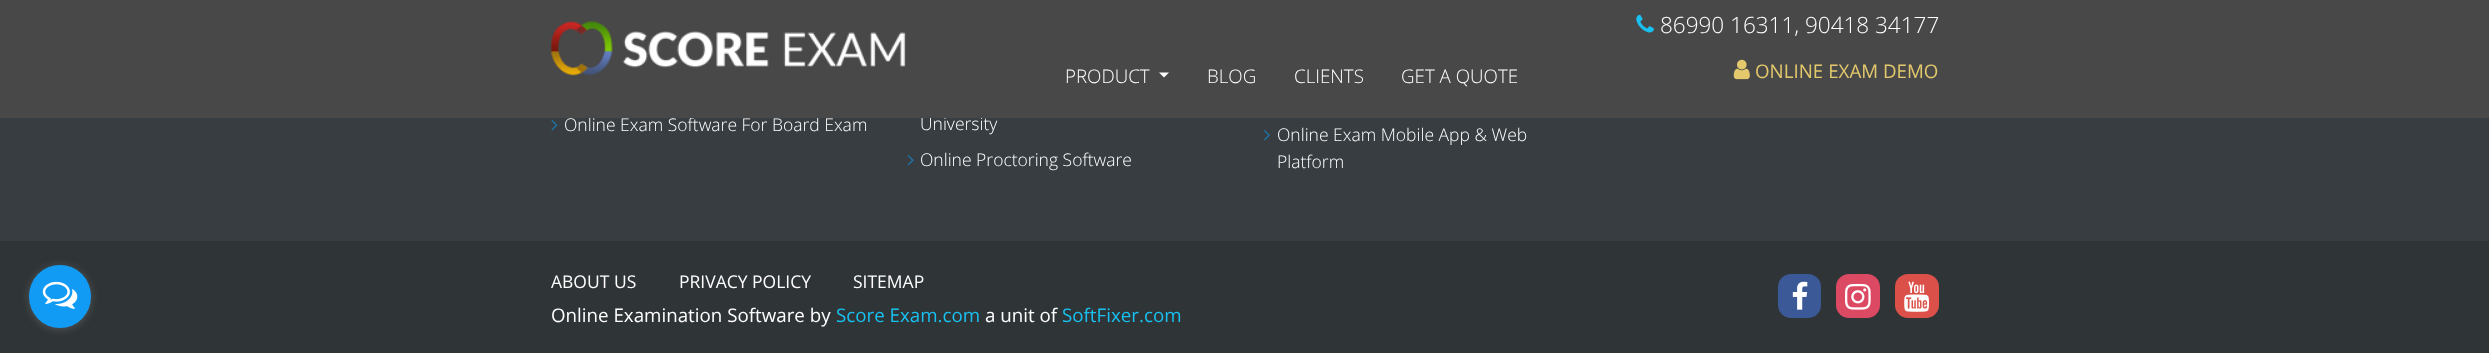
<svg xmlns="http://www.w3.org/2000/svg" width="2489" height="353">
<rect width="100%" height="100%" fill="#373d41"/>
<text x="564" y="131" style="font-family:Open Sans;font-size:17.5px;font-weight:300;fill:#fff">Online Exam Software For Board Exam</text>
<text x="920" y="130" style="font-family:Open Sans;font-size:17.5px;font-weight:300;fill:#fff">University</text>
<rect width="2489" height="118" fill="#484848"/>
<image x="551" y="21" width="355" height="55" href="media/1.png"/>
<image x="1636" y="14" width="18" height="19" href="media/2.png"/>
<text x="1660" y="33" style="font-family:Open Sans;font-size:22.5px;font-weight:300;fill:#fff">86990 16311, 90418 34177</text>
<text x="1065" y="83" style="font-family:Open Sans;font-size:18.75px;font-weight:300;fill:#fff">PRODUCT</text>
<path d="M1159 72.5h10l-5 5z" fill="#fff"/>
<text x="1207" y="83" style="font-family:Open Sans;font-size:18.75px;font-weight:300;fill:#fff">BLOG</text>
<text x="1294" y="83" style="font-family:Open Sans;font-size:18.75px;font-weight:300;fill:#fff">CLIENTS</text>
<text x="1401" y="83" style="font-family:Open Sans;font-size:18.75px;font-weight:300;fill:#fff">GET A QUOTE</text>
<image x="1733" y="59" width="17" height="21" href="media/3.png"/>
<text x="1755" y="78" style="font-family:Open Sans;font-size:18.75px;fill:#e4c96c">ONLINE EXAM DEMO</text>
<image x="551" y="120" width="7" height="11" href="media/4.png"/>
<image x="907" y="155" width="7" height="11" href="media/5.png"/>
<text x="920" y="166" style="font-family:Open Sans;font-size:17.5px;font-weight:300;fill:#fff">Online Proctoring Software</text>
<image x="1264" y="130" width="6" height="11" href="media/6.png"/>
<text x="1277" y="141" style="font-family:Open Sans;font-size:17.5px;font-weight:300;fill:#fff">Online Exam Mobile App &amp; Web</text>
<text x="1277" y="168" style="font-family:Open Sans;font-size:17.5px;font-weight:300;fill:#fff">Platform</text>
<rect y="241" width="2489" height="112" fill="#2f3437"/>
<rect x="29" y="266" width="62" height="63" rx="31" fill="#88888866" filter="blur(4.5px)"/>
<rect x="29" y="265" width="62" height="63" rx="31" fill="#129bf4"/>
<image x="42" y="281" width="36" height="28" href="media/7.png"/>
<text x="551" y="288" style="font-family:Open Sans;font-size:17.5px;fill:#fff">ABOUT US</text>
<text x="679" y="288" style="font-family:Open Sans;font-size:17.5px;fill:#fff">PRIVACY POLICY</text>
<text x="853" y="288" style="font-family:Open Sans;font-size:17.5px;fill:#fff">SITEMAP</text>
<text x="551" y="322" style="font-family:Open Sans;font-size:18.75px;fill:#fff">Online Examination Software by</text>
<text x="836" y="322" style="font-family:Open Sans;font-size:18.75px;fill:#18c1f0">Score Exam.com</text>
<text x="985" y="322" style="font-family:Open Sans;font-size:18.75px;fill:#fff">a unit of</text>
<text x="1062" y="322" style="font-family:Open Sans;font-size:18.75px;fill:#18c1f0">SoftFixer.com</text>
<rect x="1778" y="274" width="43" height="44" rx="13" fill="#3b5997"/>
<image x="1792" y="281" width="16" height="29" href="media/8.png"/>
<rect x="1836" y="274" width="44" height="44" rx="13" fill="#dc4963"/>
<image x="1845" y="283" width="26" height="27" href="media/9.png"/>
<rect x="1895" y="274" width="44" height="44" rx="13" fill="#db5149"/>
<image x="1904" y="281" width="25" height="31" href="media/10.png"/>
</svg>
